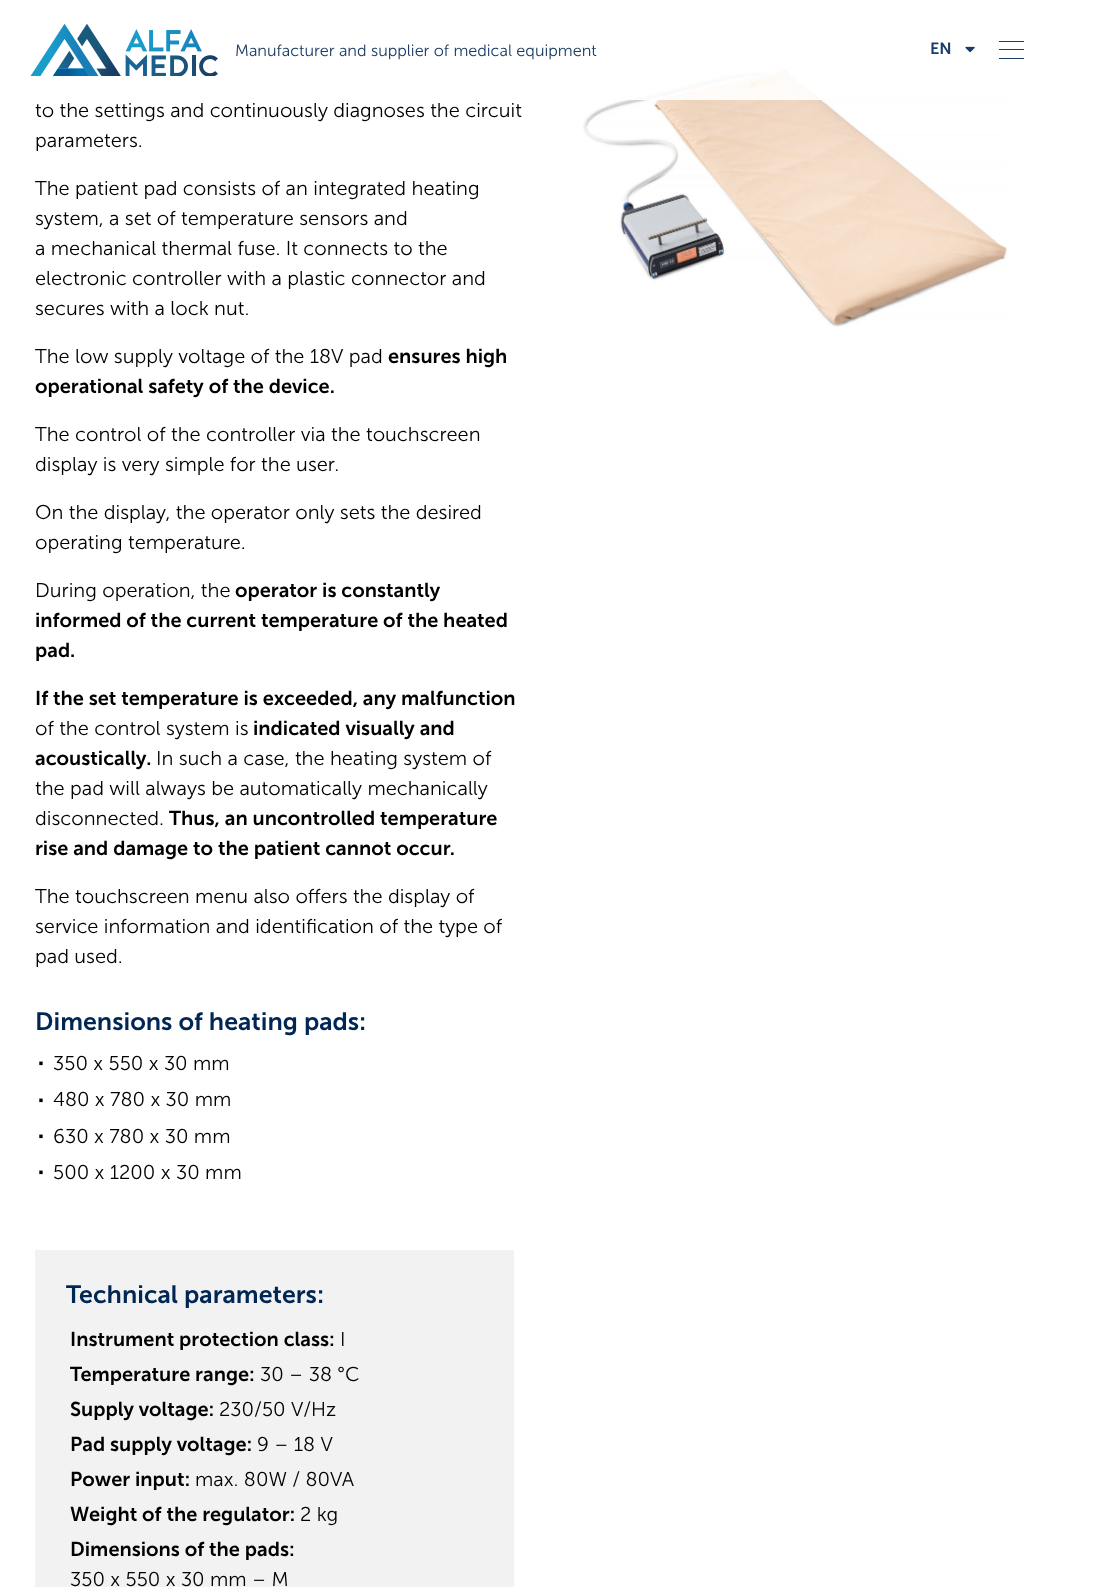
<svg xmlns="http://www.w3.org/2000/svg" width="1101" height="1587">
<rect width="100%" height="100%" fill="#fff"/>
<image x="583" y="69" width="424" height="258" href="media/3.png"/>
<rect x="623" y="69" width="204" height="31" fill="#ffffffe6"/>
<image x="30" y="24" width="188" height="52" href="media/1.png"/>
<text x="235" y="56" style="font-family:'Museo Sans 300';font-size:16.25px;font-weight:300;fill:#1a3c65">Manufacturer and supplier of medical equipment</text>
<text x="930" y="54" style="font-family:'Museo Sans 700';font-size:16.25px;font-weight:600;fill:#1a3c65">EN</text>
<image x="965" y="46" width="10" height="7" href="media/2.png"/>
<rect x="999" y="41" width="25" height="1" fill="#1a3c65"/>
<rect x="999" y="49" width="25" height="1" fill="#1a3c65"/>
<rect x="999" y="58" width="25" height="1" fill="#1a3c65"/>
<text x="35" y="117" style="font-family:'Museo Sans 300';font-size:20px;font-weight:300;fill:#000">to the settings and continuously diagnoses the circuit</text>
<text x="35" y="147" style="font-family:'Museo Sans 300';font-size:20px;font-weight:300;fill:#000">parameters.</text>
<text x="35" y="195" style="font-family:'Museo Sans 300';font-size:20px;font-weight:300;fill:#000">The patient pad consists of an integrated heating</text>
<text x="35" y="225" style="font-family:'Museo Sans 300';font-size:20px;font-weight:300;fill:#000">system, a set of temperature sensors and</text>
<text x="35" y="255" style="font-family:'Museo Sans 300';font-size:20px;font-weight:300;fill:#000">a mechanical thermal fuse. It connects to the</text>
<text x="35" y="285" style="font-family:'Museo Sans 300';font-size:20px;font-weight:300;fill:#000">electronic controller with a plastic connector and</text>
<text x="35" y="315" style="font-family:'Museo Sans 300';font-size:20px;font-weight:300;fill:#000">secures with a lock nut.</text>
<text x="35" y="363" style="font-family:'Museo Sans 300';font-size:20px;font-weight:300;fill:#000">The low supply voltage of the 18V pad</text>
<text x="388" y="363" style="font-family:'Museo Sans 700';font-size:20px;font-weight:600;fill:#000">ensures high</text>
<text x="35" y="393" style="font-family:'Museo Sans 700';font-size:20px;font-weight:600;fill:#000">operational safety of the device.</text>
<text x="35" y="441" style="font-family:'Museo Sans 300';font-size:20px;font-weight:300;fill:#000">The control of the controller via the touchscreen</text>
<text x="35" y="471" style="font-family:'Museo Sans 300';font-size:20px;font-weight:300;fill:#000">display is very simple for the user.</text>
<text x="35" y="519" style="font-family:'Museo Sans 300';font-size:20px;font-weight:300;fill:#000">On the display, the operator only sets the desired</text>
<text x="35" y="549" style="font-family:'Museo Sans 300';font-size:20px;font-weight:300;fill:#000">operating temperature.</text>
<text x="35" y="597" style="font-family:'Museo Sans 300';font-size:20px;font-weight:300;fill:#000">During operation, the</text>
<text x="235" y="597" style="font-family:'Museo Sans 700';font-size:20px;font-weight:600;fill:#000">operator is constantly</text>
<text x="35" y="627" style="font-family:'Museo Sans 700';font-size:20px;font-weight:600;fill:#000">informed of the current temperature of the heated</text>
<text x="35" y="657" style="font-family:'Museo Sans 700';font-size:20px;font-weight:600;fill:#000">pad.</text>
<text x="35" y="705" style="font-family:'Museo Sans 700';font-size:20px;font-weight:600;fill:#000">If the set temperature is exceeded, any malfunction</text>
<text x="35" y="735" style="font-family:'Museo Sans 300';font-size:20px;font-weight:300;fill:#000">of the control system is</text>
<text x="253" y="735" style="font-family:'Museo Sans 700';font-size:20px;font-weight:600;fill:#000">indicated visually and</text>
<text x="35" y="765" style="font-family:'Museo Sans 700';font-size:20px;font-weight:600;fill:#000">acoustically.</text>
<text x="156" y="765" style="font-family:'Museo Sans 300';font-size:20px;font-weight:300;fill:#000">In such a case, the heating system of</text>
<text x="35" y="795" style="font-family:'Museo Sans 300';font-size:20px;font-weight:300;fill:#000">the pad will always be automatically mechanically</text>
<text x="35" y="825" style="font-family:'Museo Sans 300';font-size:20px;font-weight:300;fill:#000">disconnected.</text>
<text x="169" y="825" style="font-family:'Museo Sans 700';font-size:20px;font-weight:600;fill:#000">Thus, an uncontrolled temperature</text>
<text x="35" y="855" style="font-family:'Museo Sans 700';font-size:20px;font-weight:600;fill:#000">rise and damage to the patient cannot occur.</text>
<text x="35" y="903" style="font-family:'Museo Sans 300';font-size:20px;font-weight:300;fill:#000">The touchscreen menu also offers the display of</text>
<text x="35" y="933" style="font-family:'Museo Sans 300';font-size:20px;font-weight:300;fill:#000">service information and identification of the type of</text>
<text x="35" y="963" style="font-family:'Museo Sans 300';font-size:20px;font-weight:300;fill:#000">pad used.</text>
<text x="35" y="1030" style="font-family:'Museo Sans 700';font-size:25px;font-weight:600;fill:#002654">Dimensions of heating pads:</text>
<text x="35" y="1076" style="font-family:'Museo Sans 300';font-size:44px;font-weight:300;fill:#000">·</text>
<text x="53" y="1070" style="font-family:'Museo Sans 300';font-size:20px;font-weight:300;fill:#000">350 x 550 x 30 mm</text>
<text x="35" y="1113" style="font-family:'Museo Sans 300';font-size:44px;font-weight:300;fill:#000">·</text>
<text x="53" y="1106" style="font-family:'Museo Sans 300';font-size:20px;font-weight:300;fill:#000">480 x 780 x 30 mm</text>
<text x="35" y="1149" style="font-family:'Museo Sans 300';font-size:44px;font-weight:300;fill:#000">·</text>
<text x="53" y="1143" style="font-family:'Museo Sans 300';font-size:20px;font-weight:300;fill:#000">630 x 780 x 30 mm</text>
<text x="35" y="1185" style="font-family:'Museo Sans 300';font-size:44px;font-weight:300;fill:#000">·</text>
<text x="53" y="1179" style="font-family:'Museo Sans 300';font-size:20px;font-weight:300;fill:#000">500 x 1200 x 30 mm</text>
<rect x="35" y="1250" width="479" height="337" fill="#f2f2f2"/>
<text x="66" y="1303" style="font-family:'Museo Sans 700';font-size:25px;font-weight:600;fill:#002654">Technical parameters:</text>
<text x="70" y="1346" style="font-family:'Museo Sans 700';font-size:20px;font-weight:600;fill:#000">Instrument protection class:</text>
<text x="340" y="1346" style="font-family:'Museo Sans 300';font-size:20px;font-weight:300;fill:#000">I</text>
<text x="70" y="1381" style="font-family:'Museo Sans 700';font-size:20px;font-weight:600;fill:#000">Temperature range:</text>
<text x="260" y="1381" style="font-family:'Museo Sans 300';font-size:20px;font-weight:300;fill:#000">30 – 38 °C</text>
<text x="70" y="1416" style="font-family:'Museo Sans 700';font-size:20px;font-weight:600;fill:#000">Supply voltage:</text>
<text x="219" y="1416" style="font-family:'Museo Sans 300';font-size:20px;font-weight:300;fill:#000">230/50 V/Hz</text>
<text x="70" y="1451" style="font-family:'Museo Sans 700';font-size:20px;font-weight:600;fill:#000">Pad supply voltage:</text>
<text x="257" y="1451" style="font-family:'Museo Sans 300';font-size:20px;font-weight:300;fill:#000">9 – 18 V</text>
<text x="70" y="1486" style="font-family:'Museo Sans 700';font-size:20px;font-weight:600;fill:#000">Power input:</text>
<text x="195" y="1486" style="font-family:'Museo Sans 300';font-size:20px;font-weight:300;fill:#000">max. 80W / 80VA</text>
<text x="70" y="1521" style="font-family:'Museo Sans 700';font-size:20px;font-weight:600;fill:#000">Weight of the regulator:</text>
<text x="300" y="1521" style="font-family:'Museo Sans 300';font-size:20px;font-weight:300;fill:#000">2 kg</text>
<text x="70" y="1556" style="font-family:'Museo Sans 700';font-size:20px;font-weight:600;fill:#000">Dimensions of the pads:</text>
<text x="70" y="1586" style="font-family:'Museo Sans 300';font-size:20px;font-weight:300;fill:#000">350 x 550 x 30 mm – M</text>
</svg>
